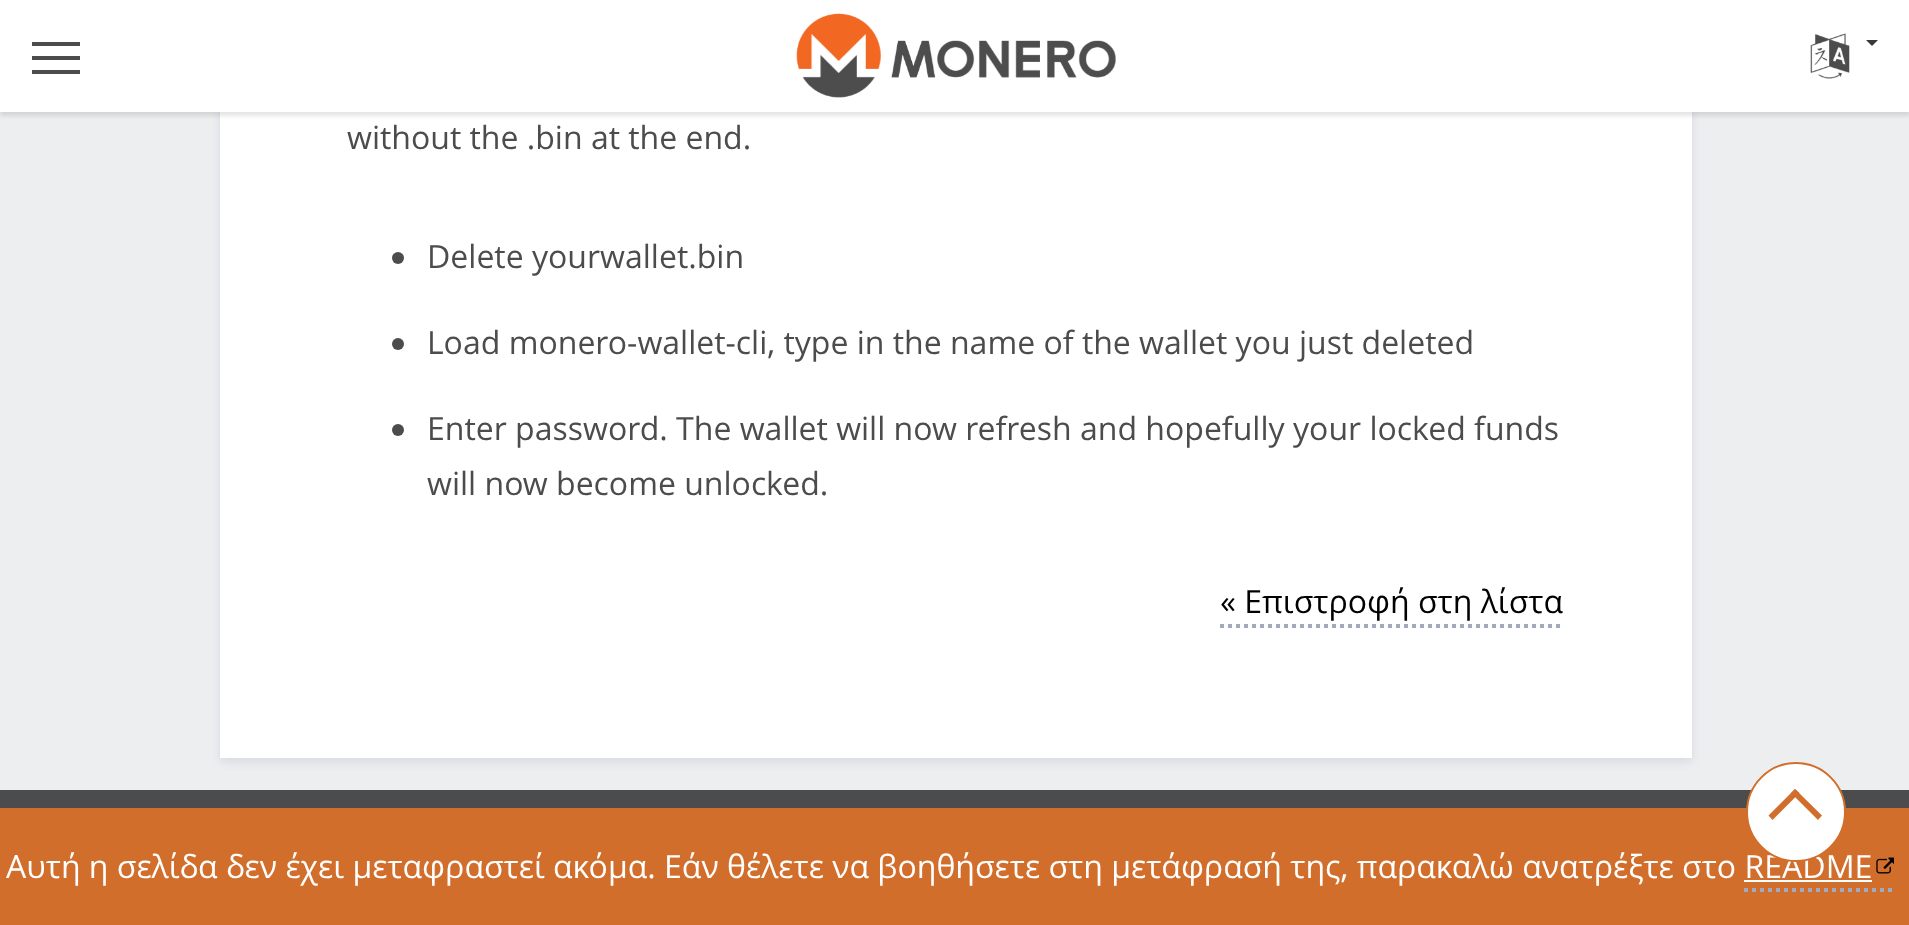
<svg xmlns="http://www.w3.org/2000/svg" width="1909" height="925">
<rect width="100%" height="100%" fill="#edeef0"/>
<rect x="220" y="-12" width="1472" height="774" fill="#32325d1a" filter="blur(4px)"/>
<rect x="220" y="112" width="1472" height="646" fill="#fff"/>
<rect y="4" width="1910" height="112" fill="#0000001a" filter="blur(2px)"/>
<rect width="1909" height="112" fill="#fff"/>
<image x="796" y="13" width="320" height="85" href="media/1.png"/>
<image x="1810" y="33" width="40" height="46" href="media/2.png"/>
<path d="M1866 40h12l-6 6z" fill="#393939"/>
<rect x="32" y="70" width="48" height="4" fill="#4c4c4c"/>
<rect x="32" y="42" width="48" height="4" fill="#4c4c4c"/>
<rect x="32" y="56" width="48" height="4" fill="#4c4c4c"/>
<text x="347" y="149" style="font-family:Open Sans;font-size:32px;fill:#4c4c4c">without the .bin at the end.</text>
<circle cx="398" cy="258" r="6" fill="#4c4c4c"/>
<text x="427" y="268" style="font-family:Open Sans;font-size:32px;fill:#4c4c4c">Delete yourwallet.bin</text>
<circle cx="398" cy="344" r="6" fill="#4c4c4c"/>
<text x="427" y="354" style="font-family:Open Sans;font-size:32px;fill:#4c4c4c">Load monero-wallet-cli, type in the name of the wallet you just deleted</text>
<circle cx="398" cy="430" r="6" fill="#4c4c4c"/>
<text x="427" y="440" style="font-family:Open Sans;font-size:32px;fill:#4c4c4c">Enter password. The wallet will now refresh and hopefully your locked funds</text>
<text x="427" y="495" style="font-family:Open Sans;font-size:32px;fill:#4c4c4c">will now become unlocked.</text>
<text x="1220" y="613" style="font-family:Open Sans;font-size:32px;fill:#000">« Επιστροφή στη λίστα</text>
<path d="M1220 626h344" fill="none" stroke="#a1aabb" stroke-width="4" stroke-dasharray="4 4"/>
<rect y="808" width="1909" height="117" fill="#d26e2b"/>
<text x="6" y="878" style="font-family:Open Sans;font-size:32px;fill:#fff">Αυτή η σελίδα δεν έχει μεταφραστεί ακόμα. Εάν θέλετε να βοηθήσετε στη μετάφρασή της, παρακαλώ ανατρέξτε στο README</text>
<image x="1876" y="857" width="18" height="17" href="media/3.png"/>
<rect x="1744" y="880" width="128" height="2" fill="#fff"/>
<path d="M1744 890h150" fill="none" stroke="#a1aabb" stroke-width="4" stroke-dasharray="4 4"/>
<rect y="790" width="1909" height="18" fill="#4c4c4c"/>
<circle cx="1796" cy="812" r="49" fill="#fff" stroke="#d26e2b" stroke-width="2"/>
<path d="M1772.5 820l-4-4.5l26.5-26.5l4.5 4z" fill="#d26e2b"/>
<path d="M1818 820l-27-27l4-4l27 26.5z" fill="#d26e2b"/>
</svg>
